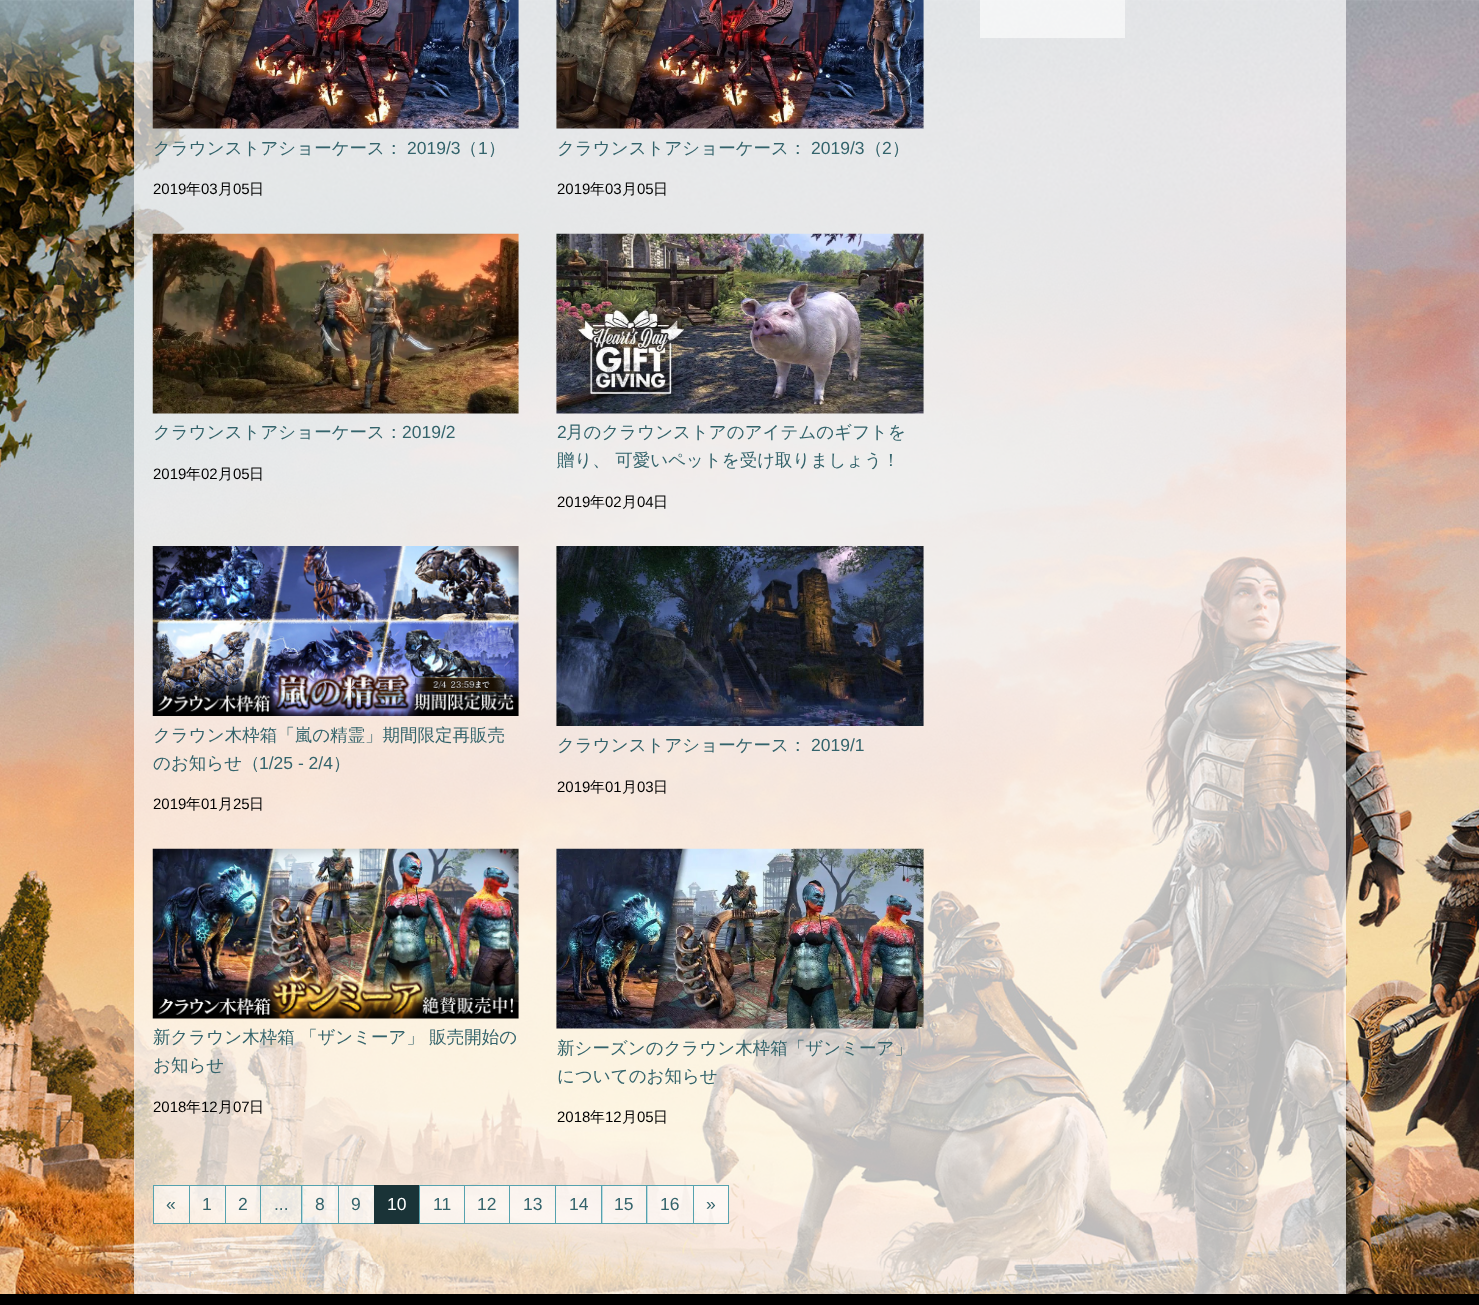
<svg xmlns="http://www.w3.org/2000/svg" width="1479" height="1305">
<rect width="100%" height="100%" fill="#fff"/>
<image x="0" y="0" width="1479" height="1294" href="media/1.png"/>
<rect x="134" width="1212" height="1294" fill="#ffffffb3"/>
<rect x="980" width="145" height="38" fill="#ffffff99"/>
<image x="152" y="0" width="367" height="129" href="media/2.png"/>
<text x="153" y="154" style="font-family:WenQuanYi Zen Hei;font-size:17.5px;font-weight:500;fill:#33636b">クラウンストアショーケース：</text>
<text x="407" y="154" style="font-family:Liberation Sans;font-size:17.5px;fill:#33636b">2019/3</text>
<text x="460" y="154" style="font-family:WenQuanYi Zen Hei;font-size:17.5px;font-weight:500;fill:#33636b">（</text>
<text x="478" y="154" style="font-family:Liberation Sans;font-size:17.5px;fill:#33636b">1</text>
<text x="488" y="154" style="font-family:WenQuanYi Zen Hei;font-size:17.5px;font-weight:500;fill:#33636b">）</text>
<text x="153" y="194" style="font-family:Liberation Sans;font-size:15px;fill:#000">2019</text>
<text x="186" y="194" style="font-family:WenQuanYi Zen Hei;font-size:15px;font-weight:500;fill:#000">年</text>
<text x="201" y="194" style="font-family:Liberation Sans;font-size:15px;fill:#000">03</text>
<text x="218" y="194" style="font-family:WenQuanYi Zen Hei;font-size:15px;font-weight:500;fill:#000">月</text>
<text x="233" y="194" style="font-family:Liberation Sans;font-size:15px;fill:#000">05</text>
<text x="249" y="194" style="font-family:WenQuanYi Zen Hei;font-size:15px;font-weight:500;fill:#000">日</text>
<image x="556" y="0" width="368" height="129" href="media/3.png"/>
<text x="557" y="154" style="font-family:WenQuanYi Zen Hei;font-size:17.5px;font-weight:500;fill:#33636b">クラウンストアショーケース：</text>
<text x="811" y="154" style="font-family:Liberation Sans;font-size:17.5px;fill:#33636b">2019/3</text>
<text x="865" y="154" style="font-family:WenQuanYi Zen Hei;font-size:17.5px;font-weight:500;fill:#33636b">（</text>
<text x="882" y="154" style="font-family:Liberation Sans;font-size:17.5px;fill:#33636b">2</text>
<text x="892" y="154" style="font-family:WenQuanYi Zen Hei;font-size:17.5px;font-weight:500;fill:#33636b">）</text>
<text x="557" y="194" style="font-family:Liberation Sans;font-size:15px;fill:#000">2019</text>
<text x="590" y="194" style="font-family:WenQuanYi Zen Hei;font-size:15px;font-weight:500;fill:#000">年</text>
<text x="605" y="194" style="font-family:Liberation Sans;font-size:15px;fill:#000">03</text>
<text x="622" y="194" style="font-family:WenQuanYi Zen Hei;font-size:15px;font-weight:500;fill:#000">月</text>
<text x="637" y="194" style="font-family:Liberation Sans;font-size:15px;fill:#000">05</text>
<text x="653" y="194" style="font-family:WenQuanYi Zen Hei;font-size:15px;font-weight:500;fill:#000">日</text>
<image x="152" y="233" width="367" height="181" href="media/4.png"/>
<text x="153" y="438" style="font-family:WenQuanYi Zen Hei;font-size:17.5px;font-weight:500;fill:#33636b">クラウンストアショーケース：</text>
<text x="402" y="438" style="font-family:Liberation Sans;font-size:17.5px;fill:#33636b">2019/2</text>
<text x="153" y="479" style="font-family:Liberation Sans;font-size:15px;fill:#000">2019</text>
<text x="186" y="479" style="font-family:WenQuanYi Zen Hei;font-size:15px;font-weight:500;fill:#000">年</text>
<text x="201" y="479" style="font-family:Liberation Sans;font-size:15px;fill:#000">02</text>
<text x="218" y="479" style="font-family:WenQuanYi Zen Hei;font-size:15px;font-weight:500;fill:#000">月</text>
<text x="233" y="479" style="font-family:Liberation Sans;font-size:15px;fill:#000">05</text>
<text x="249" y="479" style="font-family:WenQuanYi Zen Hei;font-size:15px;font-weight:500;fill:#000">日</text>
<image x="556" y="233" width="368" height="181" href="media/5.png"/>
<text x="557" y="438" style="font-family:Liberation Sans;font-size:17.5px;fill:#33636b">2</text>
<text x="566" y="438" style="font-family:WenQuanYi Zen Hei;font-size:17.5px;font-weight:500;fill:#33636b">月のクラウンストアのアイテムのギフトを</text>
<text x="557" y="466" style="font-family:WenQuanYi Zen Hei;font-size:17.5px;font-weight:500;fill:#33636b">贈り、 可愛いペットを受け取りましょう！</text>
<text x="557" y="507" style="font-family:Liberation Sans;font-size:15px;fill:#000">2019</text>
<text x="590" y="507" style="font-family:WenQuanYi Zen Hei;font-size:15px;font-weight:500;fill:#000">年</text>
<text x="605" y="507" style="font-family:Liberation Sans;font-size:15px;fill:#000">02</text>
<text x="622" y="507" style="font-family:WenQuanYi Zen Hei;font-size:15px;font-weight:500;fill:#000">月</text>
<text x="637" y="507" style="font-family:Liberation Sans;font-size:15px;fill:#000">04</text>
<text x="653" y="507" style="font-family:WenQuanYi Zen Hei;font-size:15px;font-weight:500;fill:#000">日</text>
<image x="152" y="546" width="367" height="170" href="media/6.png"/>
<text x="153" y="741" style="font-family:WenQuanYi Zen Hei;font-size:17.5px;font-weight:500;fill:#33636b">クラウン木枠箱「嵐の精霊」期間限定再販売</text>
<text x="153" y="769" style="font-family:WenQuanYi Zen Hei;font-size:17.5px;font-weight:500;fill:#33636b">のお知らせ（</text>
<text x="259" y="769" style="font-family:Liberation Sans;font-size:17.5px;fill:#33636b">1/25 - 2/4</text>
<text x="333" y="769" style="font-family:WenQuanYi Zen Hei;font-size:17.5px;font-weight:500;fill:#33636b">）</text>
<text x="153" y="809" style="font-family:Liberation Sans;font-size:15px;fill:#000">2019</text>
<text x="186" y="809" style="font-family:WenQuanYi Zen Hei;font-size:15px;font-weight:500;fill:#000">年</text>
<text x="201" y="809" style="font-family:Liberation Sans;font-size:15px;fill:#000">01</text>
<text x="218" y="809" style="font-family:WenQuanYi Zen Hei;font-size:15px;font-weight:500;fill:#000">月</text>
<text x="233" y="809" style="font-family:Liberation Sans;font-size:15px;fill:#000">25</text>
<text x="249" y="809" style="font-family:WenQuanYi Zen Hei;font-size:15px;font-weight:500;fill:#000">日</text>
<image x="556" y="546" width="368" height="180" href="media/7.png"/>
<text x="557" y="751" style="font-family:WenQuanYi Zen Hei;font-size:17.5px;font-weight:500;fill:#33636b">クラウンストアショーケース：</text>
<text x="811" y="751" style="font-family:Liberation Sans;font-size:17.5px;fill:#33636b">2019/1</text>
<text x="557" y="792" style="font-family:Liberation Sans;font-size:15px;fill:#000">2019</text>
<text x="590" y="792" style="font-family:WenQuanYi Zen Hei;font-size:15px;font-weight:500;fill:#000">年</text>
<text x="605" y="792" style="font-family:Liberation Sans;font-size:15px;fill:#000">01</text>
<text x="622" y="792" style="font-family:WenQuanYi Zen Hei;font-size:15px;font-weight:500;fill:#000">月</text>
<text x="637" y="792" style="font-family:Liberation Sans;font-size:15px;fill:#000">03</text>
<text x="653" y="792" style="font-family:WenQuanYi Zen Hei;font-size:15px;font-weight:500;fill:#000">日</text>
<image x="152" y="848" width="367" height="171" href="media/8.png"/>
<text x="153" y="1043" style="font-family:WenQuanYi Zen Hei;font-size:17.5px;font-weight:500;fill:#33636b">新クラウン木枠箱 「ザンミーア」 販売開始の</text>
<text x="153" y="1071" style="font-family:WenQuanYi Zen Hei;font-size:17.5px;font-weight:500;fill:#33636b">お知らせ</text>
<text x="153" y="1112" style="font-family:Liberation Sans;font-size:15px;fill:#000">2018</text>
<text x="186" y="1112" style="font-family:WenQuanYi Zen Hei;font-size:15px;font-weight:500;fill:#000">年</text>
<text x="201" y="1112" style="font-family:Liberation Sans;font-size:15px;fill:#000">12</text>
<text x="218" y="1112" style="font-family:WenQuanYi Zen Hei;font-size:15px;font-weight:500;fill:#000">月</text>
<text x="233" y="1112" style="font-family:Liberation Sans;font-size:15px;fill:#000">07</text>
<text x="249" y="1112" style="font-family:WenQuanYi Zen Hei;font-size:15px;font-weight:500;fill:#000">日</text>
<image x="556" y="848" width="368" height="181" href="media/9.png"/>
<text x="557" y="1054" style="font-family:WenQuanYi Zen Hei;font-size:17.5px;font-weight:500;fill:#33636b">新シーズンのクラウン木枠箱「ザンミーア」</text>
<text x="557" y="1082" style="font-family:WenQuanYi Zen Hei;font-size:17.5px;font-weight:500;fill:#33636b">についてのお知らせ</text>
<text x="557" y="1122" style="font-family:Liberation Sans;font-size:15px;fill:#000">2018</text>
<text x="590" y="1122" style="font-family:WenQuanYi Zen Hei;font-size:15px;font-weight:500;fill:#000">年</text>
<text x="605" y="1122" style="font-family:Liberation Sans;font-size:15px;fill:#000">12</text>
<text x="622" y="1122" style="font-family:WenQuanYi Zen Hei;font-size:15px;font-weight:500;fill:#000">月</text>
<text x="637" y="1122" style="font-family:Liberation Sans;font-size:15px;fill:#000">05</text>
<text x="653" y="1122" style="font-family:WenQuanYi Zen Hei;font-size:15px;font-weight:500;fill:#000">日</text>
<rect x="153.5" y="1185.5" width="36" height="38" fill="#ffffff99" stroke="#56a2ae"/>
<text x="166" y="1210" style="font-family:Liberation Sans;font-size:17.5px;fill:#33636b">«</text>
<rect x="189.5" y="1185.5" width="36" height="38" fill="#ffffff99" stroke="#56a2ae"/>
<text x="202" y="1210" style="font-family:Liberation Sans;font-size:17.5px;fill:#33636b">1</text>
<rect x="225.5" y="1185.5" width="35" height="38" fill="#ffffff99" stroke="#56a2ae"/>
<text x="238" y="1210" style="font-family:Liberation Sans;font-size:17.5px;fill:#33636b">2</text>
<rect x="261" y="1186" width="40" height="37" fill="#ffffff99"/>
<rect x="260.5" y="1185.5" width="42" height="38" fill="none" stroke="#56a2ae"/>
<text x="274" y="1210" style="font-family:Liberation Sans;font-size:17.5px;fill:#33636b">...</text>
<rect x="301.5" y="1185.5" width="37" height="38" fill="#ffffff99" stroke="#56a2ae"/>
<text x="315" y="1210" style="font-family:Liberation Sans;font-size:17.5px;fill:#33636b">8</text>
<rect x="338.5" y="1185.5" width="36" height="38" fill="#ffffff99" stroke="#56a2ae"/>
<text x="351" y="1210" style="font-family:Liberation Sans;font-size:17.5px;fill:#33636b">9</text>
<rect x="374" y="1185" width="45" height="39" fill="#1a3337"/>
<text x="387" y="1210" style="font-family:Liberation Sans;font-size:17.5px;fill:#fff">10</text>
<rect x="419.5" y="1185.5" width="45" height="38" fill="#ffffff99" stroke="#56a2ae"/>
<text x="433" y="1210" style="font-family:Liberation Sans;font-size:17.5px;fill:#33636b">11</text>
<rect x="464.5" y="1185.5" width="45" height="38" fill="#ffffff99" stroke="#56a2ae"/>
<text x="477" y="1210" style="font-family:Liberation Sans;font-size:17.5px;fill:#33636b">12</text>
<rect x="509.5" y="1185.5" width="46" height="38" fill="#ffffff99" stroke="#56a2ae"/>
<text x="523" y="1210" style="font-family:Liberation Sans;font-size:17.5px;fill:#33636b">13</text>
<rect x="556" y="1186" width="45" height="37" fill="#ffffff99"/>
<rect x="555.5" y="1185.5" width="47" height="38" fill="none" stroke="#56a2ae"/>
<text x="569" y="1210" style="font-family:Liberation Sans;font-size:17.5px;fill:#33636b">14</text>
<rect x="602" y="1186" width="44" height="37" fill="#ffffff99"/>
<rect x="601.5" y="1185.5" width="46" height="38" fill="none" stroke="#56a2ae"/>
<text x="614" y="1210" style="font-family:Liberation Sans;font-size:17.5px;fill:#33636b">15</text>
<rect x="646.5" y="1185.5" width="47" height="38" fill="#ffffff99" stroke="#56a2ae"/>
<text x="660" y="1210" style="font-family:Liberation Sans;font-size:17.5px;fill:#33636b">16</text>
<rect x="693.5" y="1185.5" width="35" height="38" fill="#ffffff99" stroke="#56a2ae"/>
<text x="706" y="1210" style="font-family:Liberation Sans;font-size:17.5px;fill:#33636b">»</text>
<rect y="1294" width="1479" height="11" fill="#000"/>
</svg>
